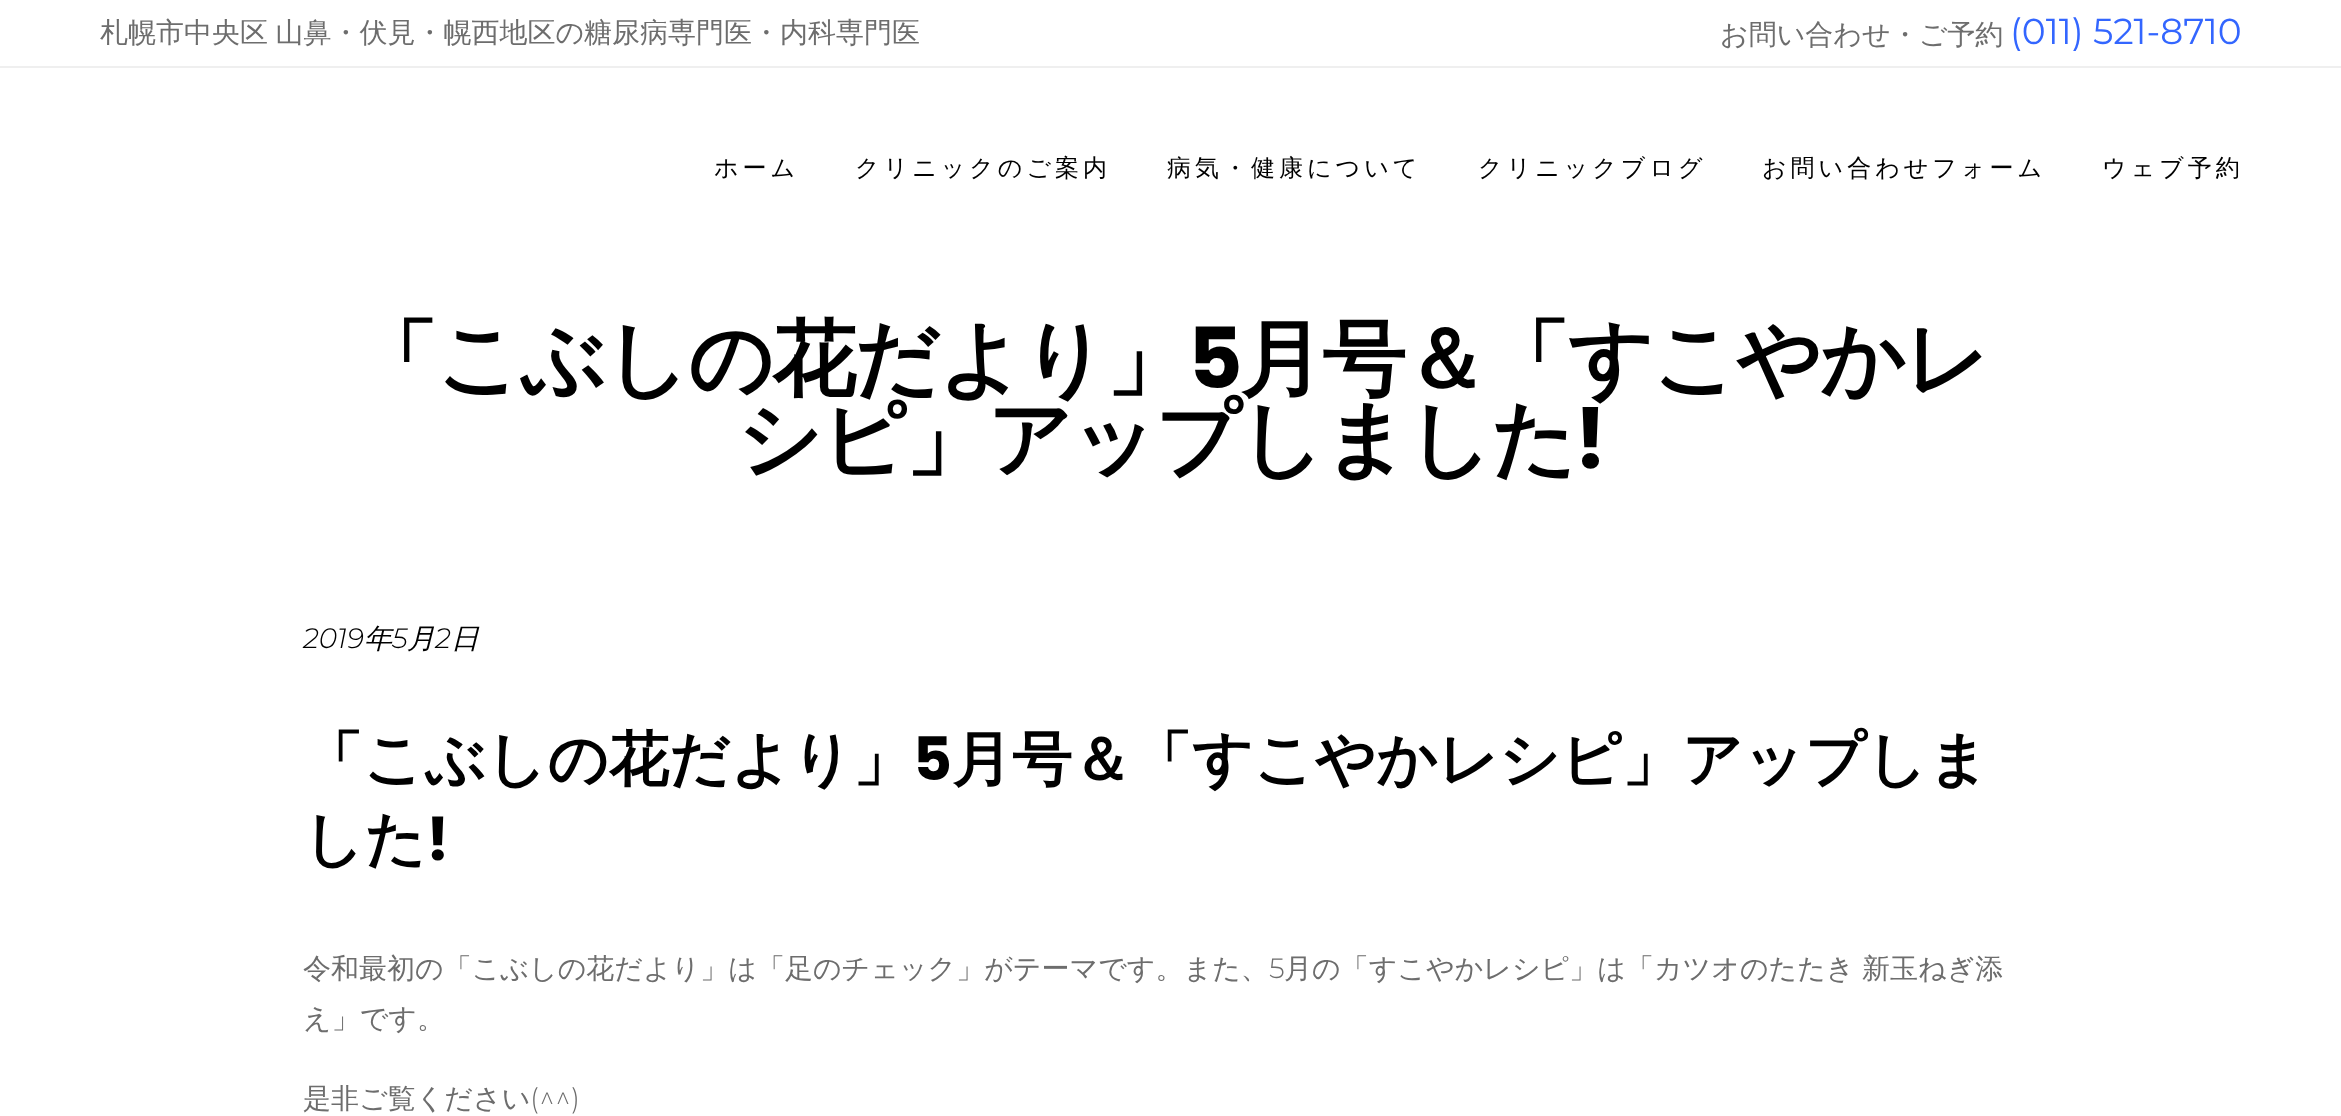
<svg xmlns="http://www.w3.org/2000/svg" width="2341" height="1116">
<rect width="100%" height="100%" fill="#fff"/>
<rect y="66" width="2341" height="2" fill="#efefef"/>
<text x="100" y="42" word-spacing="-1" style="font-family:WenQuanYi Zen Hei;font-size:28px;font-weight:500;fill:#6d6d6d">札幌市中央区 山鼻・伏見・幌西地区の糖尿病専門医・内科専門医</text>
<text x="1720" y="44" style="font-family:WenQuanYi Zen Hei;font-size:28px;font-weight:500;fill:#6d6d6d">お問い合わせ・ご予約</text>
<text x="2010" y="44" style="font-family:Montserrat;font-size:36px;fill:#36f">(011) 521-8710</text>
<text x="714" y="176" style="font-family:WenQuanYi Zen Hei;font-size:24px;font-weight:500;letter-spacing:4px;fill:#000">ホーム</text>
<text x="855" y="176" style="font-family:WenQuanYi Zen Hei;font-size:24px;font-weight:500;letter-spacing:4px;fill:#000">クリニックのご案内</text>
<text x="1167" y="176" style="font-family:WenQuanYi Zen Hei;font-size:24px;font-weight:500;letter-spacing:4px;fill:#000">病気・健康について</text>
<text x="1478" y="176" style="font-family:WenQuanYi Zen Hei;font-size:24px;font-weight:500;letter-spacing:4px;fill:#000">クリニックブログ</text>
<text x="1762" y="176" style="font-family:WenQuanYi Zen Hei;font-size:24px;font-weight:500;letter-spacing:4px;fill:#000">お問い合わせフォーム</text>
<text x="2102" y="176" style="font-family:WenQuanYi Zen Hei;font-size:24px;font-weight:500;letter-spacing:4px;fill:#000">ウェブ予約</text>
<text x="354" y="388" style="font-family:WenQuanYi Zen Hei;font-size:84px;font-weight:bold;letter-spacing:-2px;fill:#000">「こぶしの花だより」</text>
<text x="1188" y="388" style="font-family:Poppins;font-size:84px;font-weight:bold;letter-spacing:-2px;fill:#000">5</text>
<text x="1240" y="388" style="font-family:WenQuanYi Zen Hei;font-size:84px;font-weight:bold;letter-spacing:-2px;fill:#000">月号＆「すこやかレ</text>
<text x="737" y="468" style="font-family:WenQuanYi Zen Hei;font-size:84px;font-weight:bold;letter-spacing:-2px;fill:#000">シピ」アップしました</text>
<text x="1574" y="468" style="font-family:Poppins;font-size:84px;font-weight:bold;letter-spacing:-2px;fill:#000">!</text>
<text x="303" y="648" style="font-family:Montserrat;font-size:28px;font-weight:300;font-style:italic;fill:#000">2019</text>
<text x="364" y="648" style="font-family:WenQuanYi Zen Hei;font-size:28px;font-weight:500;font-style:italic;fill:#000">年</text>
<text x="392" y="648" style="font-family:Montserrat;font-size:28px;font-weight:300;font-style:italic;fill:#000">5</text>
<text x="407" y="648" style="font-family:WenQuanYi Zen Hei;font-size:28px;font-weight:500;font-style:italic;fill:#000">月</text>
<text x="435" y="648" style="font-family:Montserrat;font-size:28px;font-weight:300;font-style:italic;fill:#000">2</text>
<text x="451" y="648" style="font-family:WenQuanYi Zen Hei;font-size:28px;font-weight:500;font-style:italic;fill:#000">日</text>
<text x="303" y="780" style="font-family:WenQuanYi Zen Hei;font-size:60px;font-weight:bold;fill:#000">「こぶしの花だより」</text>
<text x="913" y="780" style="font-family:Poppins;font-size:60px;font-weight:bold;fill:#000">5</text>
<text x="952" y="780" style="font-family:WenQuanYi Zen Hei;font-size:60px;font-weight:bold;fill:#000">月号＆「すこやかレシピ」アップしま</text>
<text x="303" y="860" style="font-family:WenQuanYi Zen Hei;font-size:60px;font-weight:bold;fill:#000">した</text>
<text x="426" y="860" style="font-family:Poppins;font-size:60px;font-weight:bold;fill:#000">!</text>
<text x="303" y="978" style="font-family:WenQuanYi Zen Hei;font-size:28px;font-weight:500;fill:#6d6d6d">令和最初の「こぶしの花だより」は「足のチェック」がテーマです。また、</text>
<text x="1269" y="978" style="font-family:Montserrat;font-size:28px;font-weight:300;fill:#6d6d6d">5</text>
<text x="1284" y="978" word-spacing="-1" style="font-family:WenQuanYi Zen Hei;font-size:28px;font-weight:500;fill:#6d6d6d">月の「すこやかレシピ」は「カツオのたたき 新玉ねぎ添</text>
<text x="303" y="1028" style="font-family:WenQuanYi Zen Hei;font-size:28px;font-weight:500;fill:#6d6d6d">え」です。</text>
<text x="303" y="1108" style="font-family:WenQuanYi Zen Hei;font-size:28px;font-weight:500;fill:#6d6d6d">是非ご覧ください</text>
<text x="530" y="1108" style="font-family:Montserrat;font-size:28px;font-weight:300;fill:#6d6d6d">(^^)</text>
</svg>
